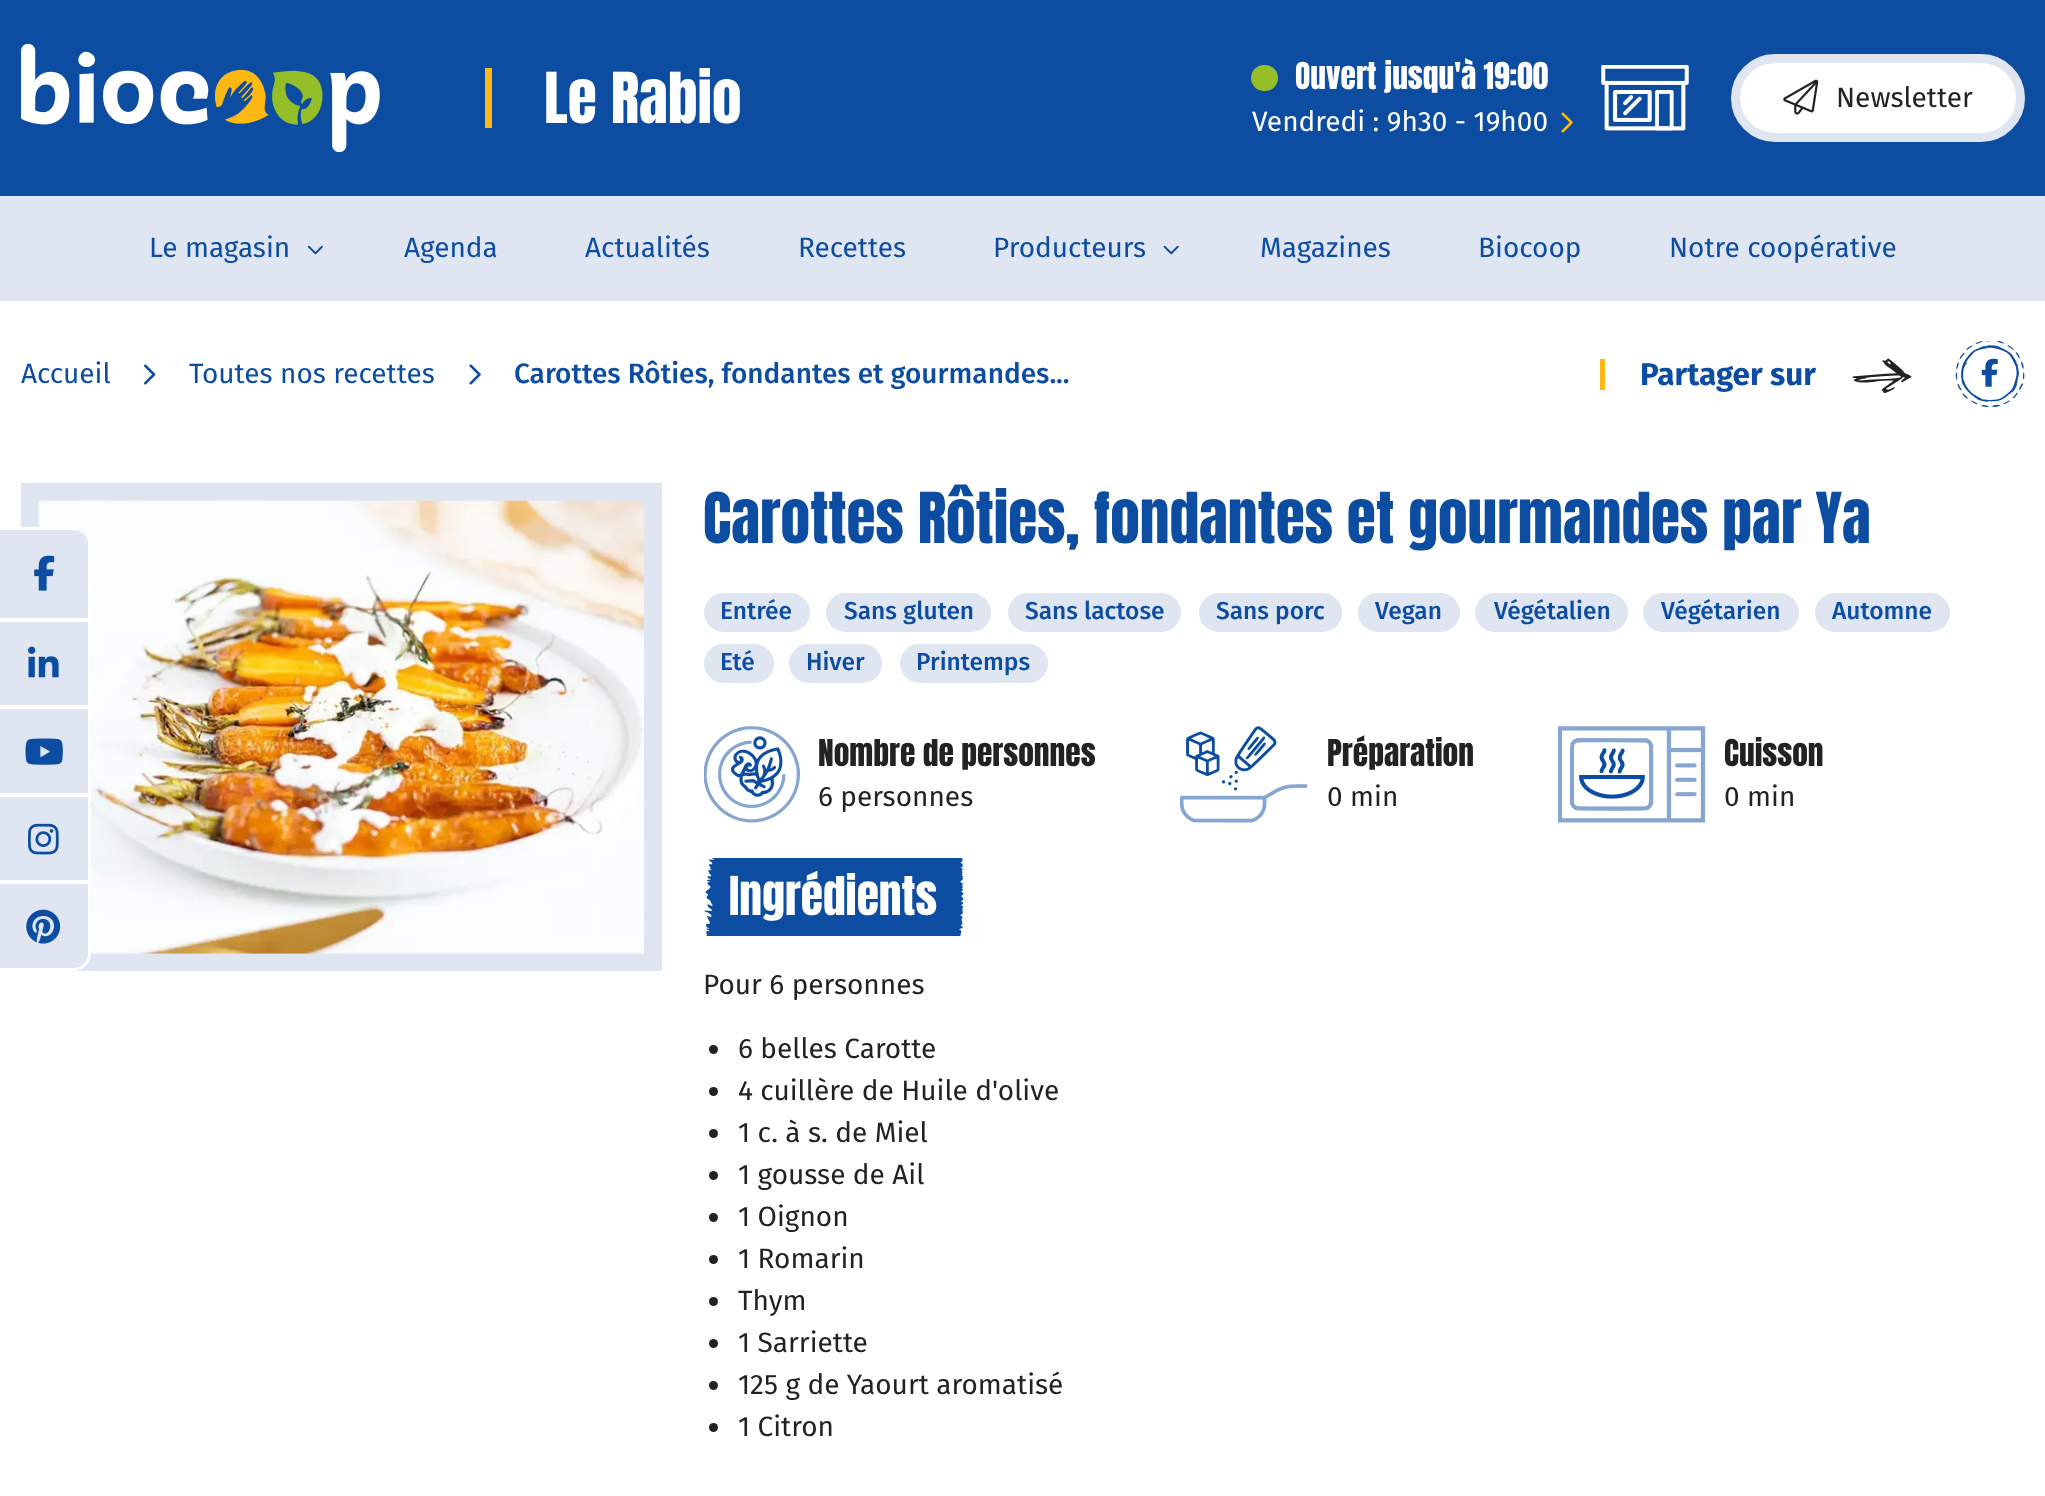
<svg xmlns="http://www.w3.org/2000/svg" width="2045" height="1496">
<defs>
<clipPath id="clip1"><rect y="1477" width="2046" height="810"/></clipPath>
</defs>
<rect width="100%" height="100%" fill="#fff"/>
<rect width="2045" height="196" fill="#0c4da2"/>
<image x="21" y="44" width="359" height="108" href="media/1.png"/>
<rect x="485" y="68" width="7" height="60" fill="#fdb813"/>
<text x="544" y="123" style="font-family:Anton;font-size:59.5px;fill:#fff">Le Rabio</text>
<rect x="1251" y="65" width="27" height="26" rx="13" fill="#96be28"/>
<text x="1295" y="89" style="font-family:Anton;font-size:31.5px;fill:#fff">Ouvert jusqu'à 19:00</text>
<image x="1601" y="65" width="88" height="66" href="media/2.png"/>
<text x="1252" y="131" style="font-family:Fira Sans;font-size:28px;fill:#fff">Vendredi : 9h30 - 19h00</text>
<image x="1561" y="112" width="12" height="21" href="media/3.png"/>
<rect x="1735.5" y="58.5" width="285" height="79" rx="39.5" fill="#fff" stroke="#dfe5f1" stroke-width="9"/>
<image x="1783" y="79" width="36" height="36" href="media/4.png"/>
<text x="1836" y="107" style="font-family:Fira Sans;font-size:28px;fill:#222">Newsletter</text>
<rect y="196" width="2045" height="105" fill="#dfe5f1"/>
<text x="149" y="257" style="font-family:Fira Sans;font-size:28px;fill:#0c4da2">Le magasin</text>
<image x="307" y="245" width="16" height="10" href="media/5.png"/>
<text x="404" y="257" style="font-family:Fira Sans;font-size:28px;fill:#0c4da2">Agenda</text>
<text x="585" y="257" style="font-family:Fira Sans;font-size:28px;fill:#0c4da2">Actualités</text>
<text x="798" y="257" style="font-family:Fira Sans;font-size:28px;fill:#0c4da2">Recettes</text>
<text x="993" y="257" style="font-family:Fira Sans;font-size:28px;fill:#0c4da2">Producteurs</text>
<image x="1163" y="245" width="16" height="10" href="media/6.png"/>
<text x="1260" y="257" style="font-family:Fira Sans;font-size:28px;fill:#0c4da2">Magazines</text>
<text x="1478" y="257" style="font-family:Fira Sans;font-size:28px;fill:#0c4da2">Biocoop</text>
<text x="1669" y="257" style="font-family:Fira Sans;font-size:28px;fill:#0c4da2">Notre coopérative</text>
<text x="21" y="383" style="font-family:Fira Sans;font-size:28px;fill:#0c4da2">Accueil</text>
<image x="144" y="364" width="12" height="21" href="media/7.png"/>
<text x="189" y="383" style="font-family:Fira Sans;font-size:28px;fill:#0c4da2">Toutes nos recettes</text>
<image x="469" y="364" width="12" height="21" href="media/8.png"/>
<text x="514" y="383" style="font-family:Fira Sans;font-size:28px;font-weight:500;fill:#0c4da2">Carottes Rôties, fondantes et gourmandes...</text>
<rect x="1600" y="359" width="5" height="31" fill="#fdb813"/>
<text x="1640" y="385" style="font-family:Fira Sans;font-size:31.5px;font-weight:bold;fill:#0c4da2">Partager sur</text>
<image x="1852" y="358" width="60" height="36" href="media/9.png"/>
<image x="1955" y="341" width="70" height="67" href="media/10.png"/>
<image x="1981" y="358" width="17" height="29" href="media/11.png"/>
<rect x="30" y="492" width="623" height="470" fill="none" stroke="#dfe5f1" stroke-width="18"/>
<image x="38" y="500" width="606" height="454" href="media/12.png"/>
<text x="703" y="543" style="font-family:Anton;font-size:59.5px;fill:#0c4da2">Carottes Rôties, fondantes et gourmandes par Ya</text>
<rect x="704" y="593" width="106" height="39" rx="19.5" fill="#dfe5f1"/>
<text x="720" y="619" style="font-family:Fira Sans;font-size:24.5px;font-weight:500;fill:#0c4da2">Entrée</text>
<rect x="826" y="593" width="165" height="39" rx="19.5" fill="#dfe5f1"/>
<text x="844" y="619" style="font-family:Fira Sans;font-size:24.5px;font-weight:500;fill:#0c4da2">Sans gluten</text>
<rect x="1008" y="593" width="173" height="39" rx="19.5" fill="#dfe5f1"/>
<text x="1025" y="619" style="font-family:Fira Sans;font-size:24.5px;font-weight:500;fill:#0c4da2">Sans lactose</text>
<rect x="1199" y="593" width="143" height="39" rx="19.5" fill="#dfe5f1"/>
<text x="1216" y="619" style="font-family:Fira Sans;font-size:24.5px;font-weight:500;fill:#0c4da2">Sans porc</text>
<rect x="1358" y="593" width="102" height="39" rx="19.5" fill="#dfe5f1"/>
<text x="1375" y="619" style="font-family:Fira Sans;font-size:24.5px;font-weight:500;fill:#0c4da2">Vegan</text>
<rect x="1475" y="593" width="153" height="39" rx="19.5" fill="#dfe5f1"/>
<text x="1494" y="619" style="font-family:Fira Sans;font-size:24.5px;font-weight:500;fill:#0c4da2">Végétalien</text>
<rect x="1643" y="593" width="156" height="39" rx="19.5" fill="#dfe5f1"/>
<text x="1661" y="619" style="font-family:Fira Sans;font-size:24.5px;font-weight:500;fill:#0c4da2">Végétarien</text>
<rect x="1815" y="593" width="135" height="39" rx="19.5" fill="#dfe5f1"/>
<text x="1832" y="619" style="font-family:Fira Sans;font-size:24.5px;font-weight:500;fill:#0c4da2">Automne</text>
<rect x="704" y="644" width="70" height="39" rx="19.5" fill="#dfe5f1"/>
<text x="720" y="670" style="font-family:Fira Sans;font-size:24.5px;font-weight:500;fill:#0c4da2">Eté</text>
<rect x="789" y="644" width="93" height="39" rx="19.5" fill="#dfe5f1"/>
<text x="806" y="670" style="font-family:Fira Sans;font-size:24.5px;font-weight:500;fill:#0c4da2">Hiver</text>
<rect x="900" y="644" width="148" height="39" rx="19.5" fill="#dfe5f1"/>
<text x="916" y="670" style="font-family:Fira Sans;font-size:24.5px;font-weight:500;fill:#0c4da2">Printemps</text>
<image x="704" y="726" width="96" height="97" href="media/13.png"/>
<text x="818" y="766" style="font-family:Anton;font-size:31.5px;fill:#222">Nombre de personnes</text>
<text x="818" y="806" style="font-family:Fira Sans;font-size:28px;fill:#222">6 personnes</text>
<image x="1180" y="726" width="128" height="97" href="media/14.png"/>
<text x="1327" y="766" style="font-family:Anton;font-size:31.5px;fill:#222">Préparation</text>
<text x="1327" y="806" style="font-family:Fira Sans;font-size:28px;fill:#222">0 min</text>
<image x="1558" y="726" width="148" height="97" href="media/15.png"/>
<text x="1724" y="766" style="font-family:Anton;font-size:31.5px;fill:#222">Cuisson</text>
<text x="1724" y="806" style="font-family:Fira Sans;font-size:28px;fill:#222">0 min</text>
<image x="704" y="858" width="260" height="78" href="media/16.png"/>
<text x="729" y="915" style="font-family:Anton;font-size:45.5px;fill:#fff">Ingrédients</text>
<text x="703" y="994" style="font-family:Fira Sans;font-size:28px;fill:#222">Pour 6 personnes</text>
<circle cx="713.5" cy="1049.5" r="4.5" fill="#222"/>
<text x="738" y="1058" style="font-family:Fira Sans;font-size:28px;fill:#222">6 belles Carotte</text>
<circle cx="713.5" cy="1091.5" r="4.5" fill="#222"/>
<text x="738" y="1100" style="font-family:Fira Sans;font-size:28px;fill:#222">4 cuillère de Huile d'olive</text>
<circle cx="713.5" cy="1133.5" r="4.5" fill="#222"/>
<text x="738" y="1142" style="font-family:Fira Sans;font-size:28px;fill:#222">1 c. à s. de Miel</text>
<circle cx="713.5" cy="1175.5" r="4.5" fill="#222"/>
<text x="738" y="1184" style="font-family:Fira Sans;font-size:28px;fill:#222">1 gousse de Ail</text>
<circle cx="713.5" cy="1217.5" r="4.5" fill="#222"/>
<text x="738" y="1226" style="font-family:Fira Sans;font-size:28px;fill:#222">1 Oignon</text>
<circle cx="713.5" cy="1259.5" r="4.5" fill="#222"/>
<text x="738" y="1268" style="font-family:Fira Sans;font-size:28px;fill:#222">1 Romarin</text>
<circle cx="713.5" cy="1301.5" r="4.5" fill="#222"/>
<text x="738" y="1310" style="font-family:Fira Sans;font-size:28px;fill:#222">Thym</text>
<circle cx="713.5" cy="1343.5" r="4.5" fill="#222"/>
<text x="738" y="1352" style="font-family:Fira Sans;font-size:28px;fill:#222">1 Sarriette</text>
<circle cx="713.5" cy="1385.5" r="4.5" fill="#222"/>
<text x="738" y="1394" style="font-family:Fira Sans;font-size:28px;fill:#222">125 g de Yaourt aromatisé</text>
<circle cx="713.5" cy="1427.5" r="4.5" fill="#222"/>
<text x="738" y="1436" style="font-family:Fira Sans;font-size:28px;fill:#222">1 Citron</text>
<rect y="1495" width="2045" height="1" fill="#f8f8f2"/>
<g clip-path="url(#clip1)">
<ellipse cx="1023" cy="1403.5" rx="1227" ry="166" fill="#fff"/>
</g>
<path d="M-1 529h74c9 0 16 7 16 16v408c0 9-7 16-16 16h-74z" fill="none" stroke="#fff" stroke-width="4"/>
<path d="M0 530h74c7.5 0 14 6.5 14 14v74h-88z" fill="#dfe5f1"/>
<image x="34" y="555" width="21" height="36" href="media/17.png"/>
<rect y="622" width="88" height="83" fill="#dfe5f1"/>
<rect x="21" y="618" width="67" height="4" fill="#fff"/>
<image x="28" y="646" width="31" height="32" href="media/18.png"/>
<rect y="709" width="88" height="84" fill="#dfe5f1"/>
<rect x="21" y="705" width="67" height="4" fill="#fff"/>
<image x="25" y="738" width="38" height="27" href="media/19.png"/>
<rect y="797" width="88" height="83" fill="#dfe5f1"/>
<rect x="21" y="793" width="67" height="4" fill="#fff"/>
<image x="28" y="823" width="31" height="32" href="media/20.png"/>
<path d="M0 884h88v70c0 7.5-6.5 14-14 14h-74z" fill="#dfe5f1"/>
<rect x="21" y="880" width="67" height="4" fill="#fff"/>
<image x="26" y="909" width="35" height="35" href="media/21.png"/>
</svg>
